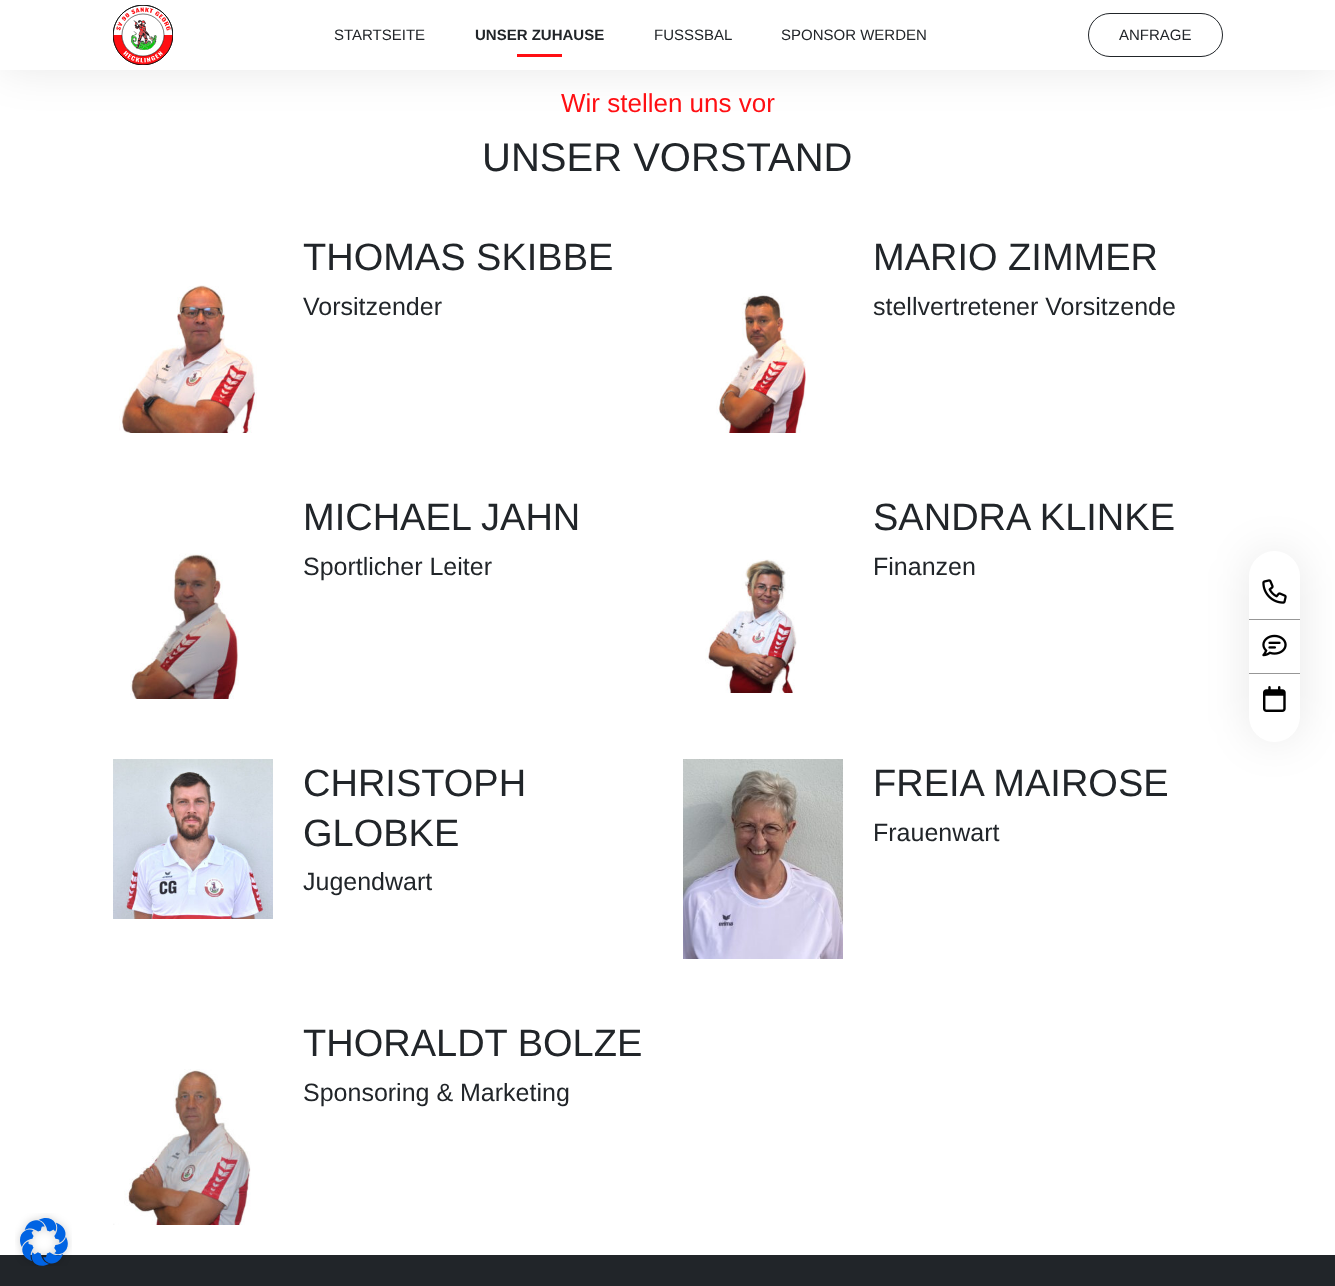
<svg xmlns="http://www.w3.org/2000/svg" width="1335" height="1286">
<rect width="100%" height="100%" fill="#fff"/>
<rect x="2" y="2" width="1331" height="66" fill="#0000001a" filter="blur(22.5px)"/>
<rect width="1335" height="70" fill="#fff"/>
<image x="113" y="5" width="60" height="60" href="media/1.png"/>
<text x="334" y="40" style="font-family:Liberation Sans;font-size:15px;fill:#212529">STARTSEITE</text>
<text x="475" y="40" style="font-family:Liberation Sans;font-size:15px;font-weight:bold;fill:#212529">UNSER ZUHAUSE</text>
<rect x="517" y="54" width="45" height="3" fill="#ff0f13"/>
<text x="654" y="40" style="font-family:Liberation Sans;font-size:15px;fill:#212529">FUSSSBAL</text>
<text x="781" y="40" style="font-family:Liberation Sans;font-size:15px;fill:#212529">SPONSOR WERDEN</text>
<rect x="1088.5" y="13.5" width="134" height="43" rx="21.5" fill="none" stroke="#212529"/>
<text x="1119" y="40" style="font-family:Liberation Sans;font-size:15px;fill:#212529">ANFRAGE</text>
<rect x="1251" y="553" width="47" height="187" rx="23.5" fill="#0000001a" filter="blur(22.5px)"/>
<rect x="1249" y="551" width="51" height="191" rx="25.5" fill="#fff"/>
<image x="1262" y="579" width="25" height="25" href="media/2.png"/>
<rect x="1249" y="619" width="51" height="1" fill="#979797"/>
<image x="1262" y="634" width="25" height="23" href="media/3.png"/>
<rect x="1249" y="673" width="51" height="1" fill="#979797"/>
<image x="1263" y="686" width="23" height="26" href="media/4.png"/>
<text x="561" y="112" style="font-family:Liberation Sans;font-size:26px;fill:#ff0f13">Wir stellen uns vor</text>
<text x="482" y="171" style="font-family:Liberation Sans;font-size:40px;fill:#212529">UNSER VORSTAND</text>
<image x="119" y="285" width="138" height="148" href="media/5.png"/>
<text x="303" y="270" style="font-family:Liberation Sans;font-size:38px;fill:#212529">THOMAS SKIBBE</text>
<text x="303" y="315" style="font-family:Liberation Sans;font-size:25px;fill:#212529">Vorsitzender</text>
<text x="873" y="270" style="font-family:Liberation Sans;font-size:38px;fill:#212529">MARIO ZIMMER</text>
<text x="873" y="315" style="font-family:Liberation Sans;font-size:25px;fill:#212529">stellvertretener Vorsitzende</text>
<image x="716" y="293" width="90" height="140" href="media/6.png"/>
<text x="303" y="530" style="font-family:Liberation Sans;font-size:38px;fill:#212529">MICHAEL JAHN</text>
<text x="303" y="575" style="font-family:Liberation Sans;font-size:25px;fill:#212529">Sportlicher Leiter</text>
<image x="130" y="553" width="109" height="146" href="media/7.png"/>
<text x="873" y="530" style="font-family:Liberation Sans;font-size:38px;fill:#212529">SANDRA KLINKE</text>
<text x="873" y="575" style="font-family:Liberation Sans;font-size:25px;fill:#212529">Finanzen</text>
<image x="705" y="559" width="92" height="134" href="media/8.png"/>
<image x="113" y="759" width="160" height="160" href="media/9.png"/>
<text x="303" y="796" style="font-family:Liberation Sans;font-size:38px;fill:#212529">CHRISTOPH</text>
<text x="303" y="846" style="font-family:Liberation Sans;font-size:38px;fill:#212529">GLOBKE</text>
<text x="303" y="890" style="font-family:Liberation Sans;font-size:25px;fill:#212529">Jugendwart</text>
<image x="683" y="759" width="160" height="200" href="media/10.png"/>
<text x="873" y="796" style="font-family:Liberation Sans;font-size:38px;fill:#212529">FREIA MAIROSE</text>
<text x="873" y="841" style="font-family:Liberation Sans;font-size:25px;fill:#212529">Frauenwart</text>
<image x="113" y="1069" width="138" height="156" href="media/11.png"/>
<text x="303" y="1056" style="font-family:Liberation Sans;font-size:38px;fill:#212529">THORALDT BOLZE</text>
<text x="303" y="1101" style="font-family:Liberation Sans;font-size:25px;fill:#212529">Sponsoring &amp; Marketing</text>
<rect y="1255" width="1335" height="31" fill="#212529"/>
<image x="15" y="1213" width="57" height="53" href="media/12.png"/>
</svg>
